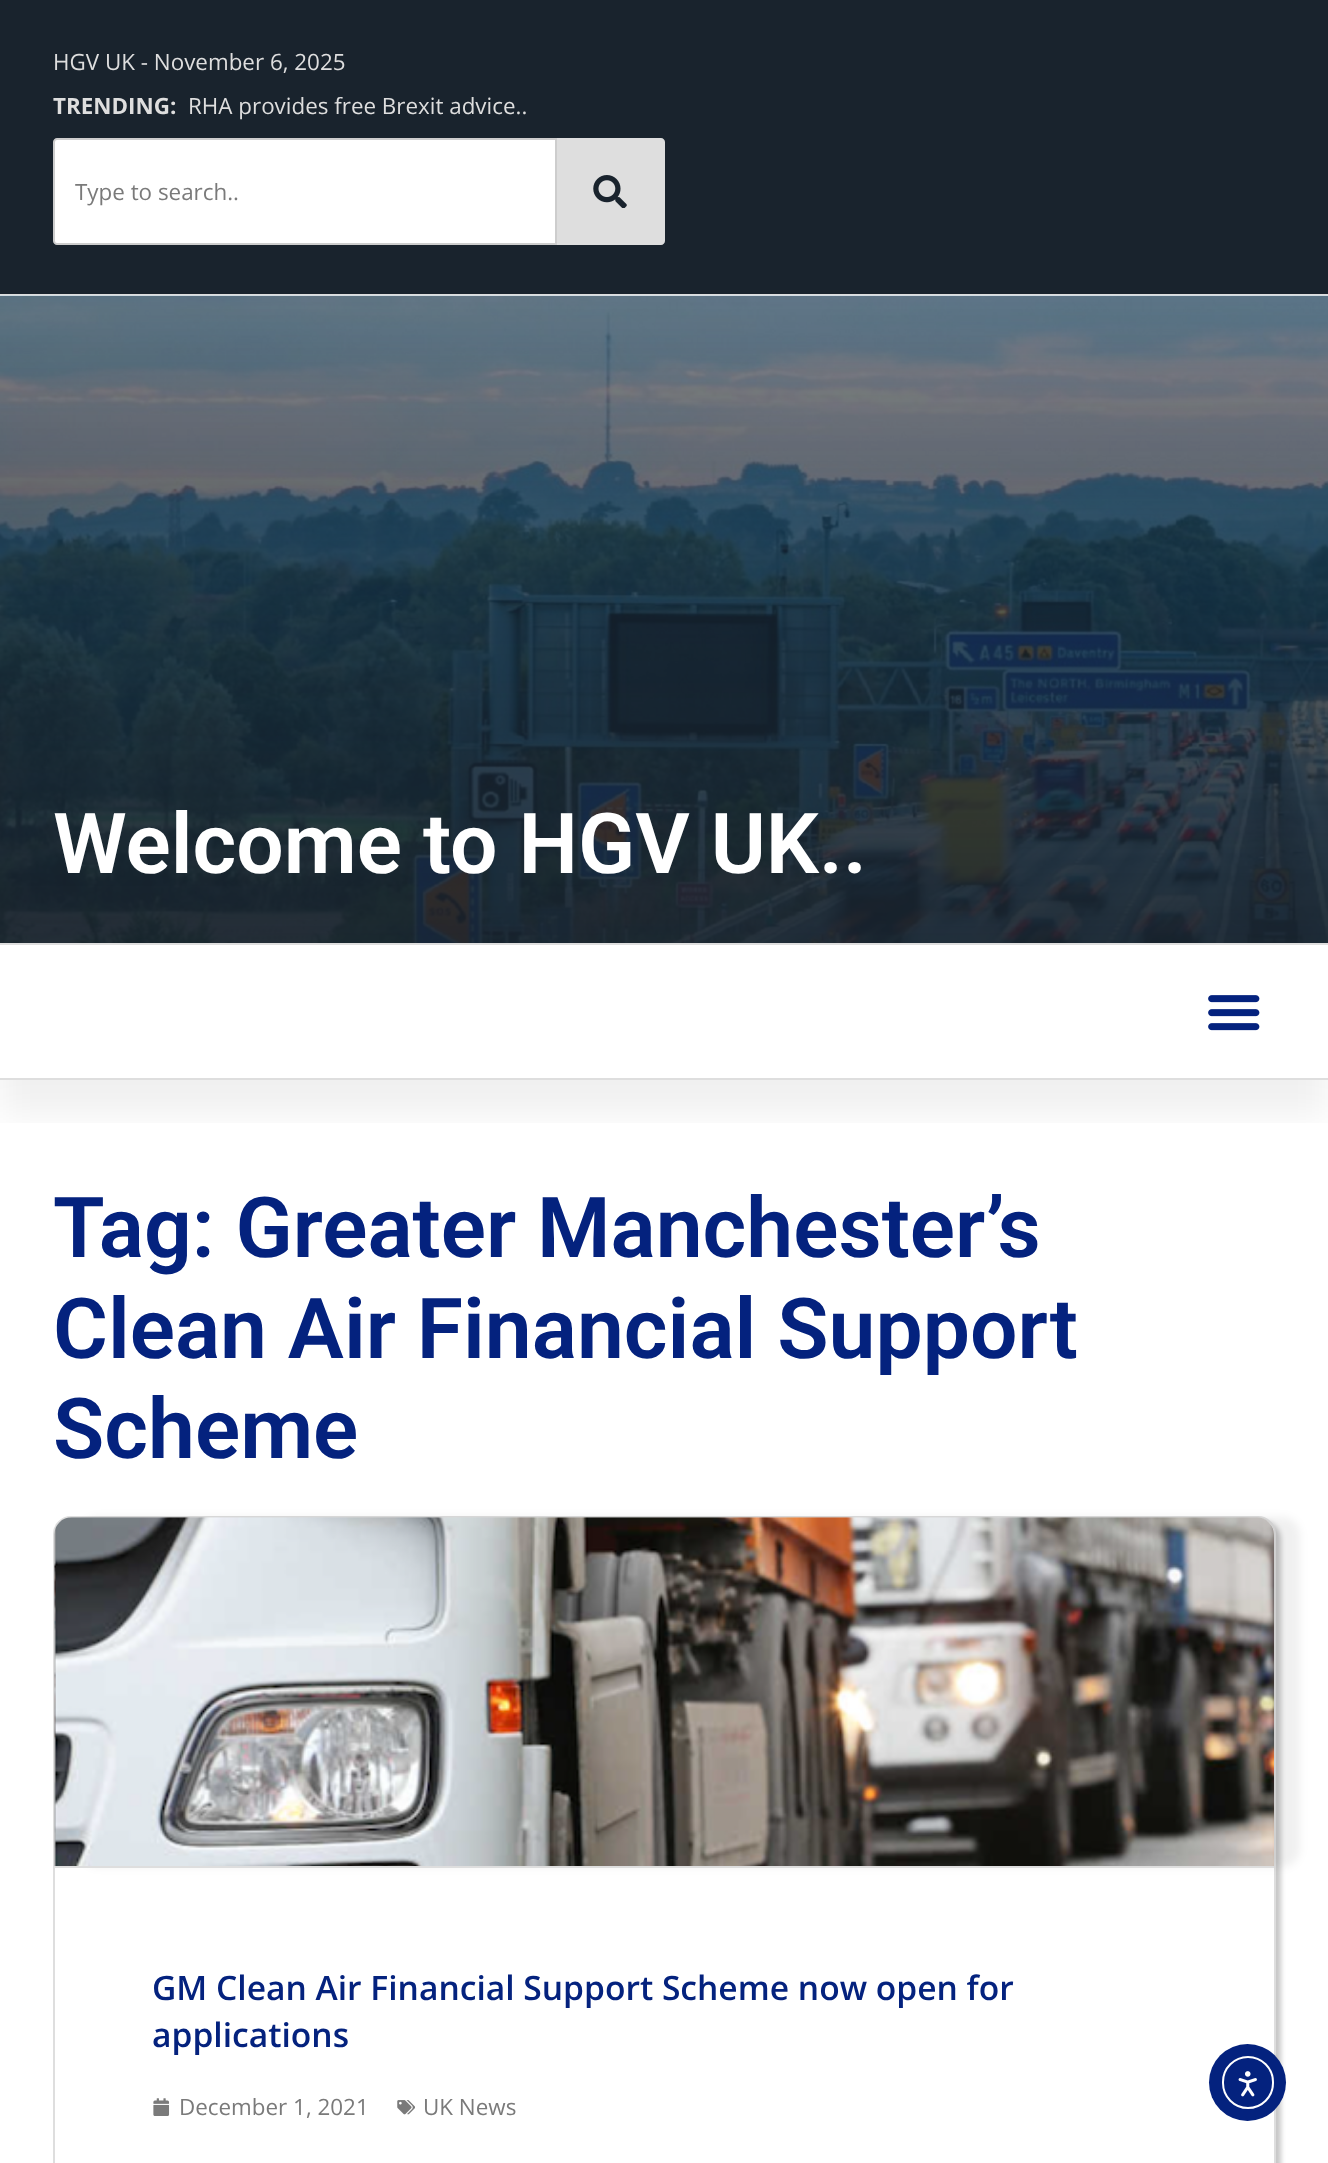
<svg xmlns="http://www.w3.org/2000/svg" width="1328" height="2163">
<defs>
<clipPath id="clip1"><rect x="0" y="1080" width="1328" height="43"/></clipPath>
</defs>
<rect width="100%" height="100%" fill="#fff"/>
<rect width="1328" height="294" fill="#19232d"/>
<rect y="294" width="1328" height="2" fill="#dedede"/>
<text x="53" y="70" style="font-family:Open Sans;font-size:22.4px;fill:#dedede">HGV UK - November 6, 2025</text>
<text x="53" y="114" style="font-family:Open Sans;font-size:22.4px;font-weight:bold;fill:#dedede">TRENDING:</text>
<text x="188" y="114" style="font-family:Open Sans;font-size:22.4px;fill:#dedede">RHA provides free Brexit advice..</text>
<path d="M57 139h499v105h-499c-1.5 0-3-1.5-3-3v-99c0-1.5 1.5-3 3-3z" fill="#fff" stroke="#cdcdcd" stroke-width="2"/>
<text x="75" y="200" style="font-family:Open Sans;font-size:22.4px;fill:#7a7a7a">Type to search..</text>
<path d="M557 138h104c2 0 4 2 4 4v99c0 2-2 4-4 4h-104z" fill="#dedede"/>
<image x="593" y="175" width="34" height="33" href="media/1.png"/>
<image x="0" y="295" width="1328" height="648" href="media/2.png"/>
<text x="53" y="873" style="font-family:Roboto;font-size:84px;font-weight:600;fill:#fff">Welcome to HGV UK..</text>
<g clip-path="url(#clip1)">
<rect y="978" width="1328" height="137" fill="#0000000f" filter="blur(17.5px)"/>
</g>
<rect y="943" width="1328" height="2" fill="#dedede"/>
<rect y="1078" width="1328" height="2" fill="#dedede"/>
<image x="1208" y="995" width="52" height="36" href="media/3.png"/>
<text x="53" y="1257" style="font-family:Roboto;font-size:84px;font-weight:600;fill:#04227e">Tag: Greater Manchester’s</text>
<text x="53" y="1358" style="font-family:Roboto;font-size:84px;font-weight:600;fill:#04227e">Clean Air Financial Support</text>
<text x="53" y="1458" style="font-family:Roboto;font-size:84px;font-weight:600;fill:#04227e">Scheme</text>
<rect x="58" y="1521" width="1223" height="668" rx="18" fill="#00000038" filter="blur(2.5px)"/>
<rect x="54" y="1517" width="1221" height="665" rx="17" fill="#fff" stroke="#dedede" stroke-width="2"/>
<rect x="81" y="1517" width="1219" height="350" rx="18" fill="#0000000f" filter="blur(4.5px)"/>
<image x="54" y="1517" width="1220" height="349" href="media/4.png"/>
<rect x="54" y="1866" width="1220" height="2" fill="#dedede"/>
<text x="152" y="2000" style="font-family:Open Sans;font-size:33.6px;font-weight:600;fill:#04227e">GM Clean Air Financial Support Scheme now open for</text>
<text x="152" y="2047" style="font-family:Open Sans;font-size:33.6px;font-weight:600;fill:#04227e">applications</text>
<image x="153" y="2098" width="17" height="18" href="media/5.png"/>
<text x="179" y="2115" style="font-family:Open Sans;font-size:22.4px;fill:#7a7a7a">December 1, 2021</text>
<image x="397" y="2100" width="18" height="15" href="media/6.png"/>
<text x="423" y="2115" style="font-family:Open Sans;font-size:22.4px;fill:#7a7a7a">UK News</text>
<circle cx="1247.5" cy="2082.5" r="38.5" fill="#04227e"/>
<rect x="1223" y="2057" width="50" height="51" rx="25" fill="none" stroke="#fff" stroke-width="2"/>
<image x="1238" y="2071" width="19" height="26" href="media/7.png"/>
</svg>
